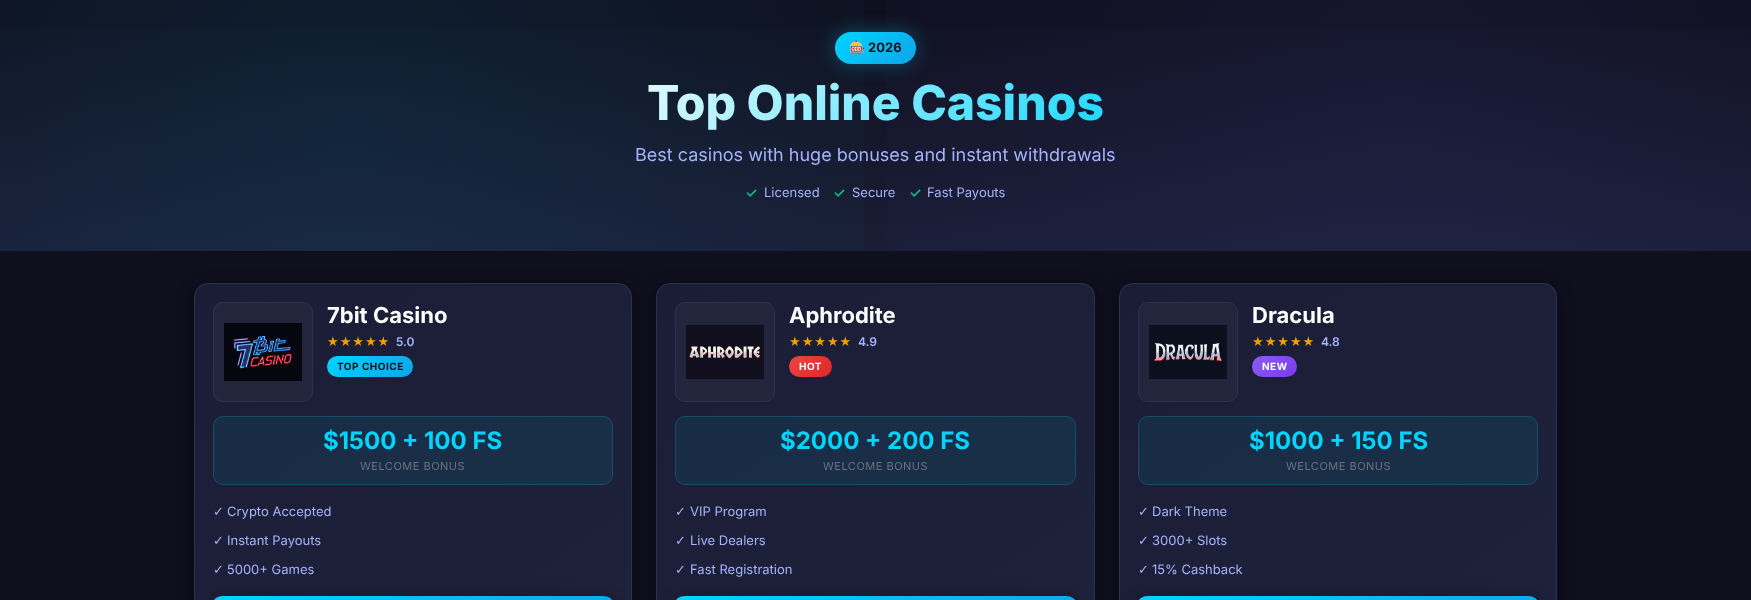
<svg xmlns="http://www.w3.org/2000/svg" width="1751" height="600">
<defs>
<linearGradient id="g1" gradientUnits="userSpaceOnUse" x1="711" y1="-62" x2="1040" y2="267"><stop offset="0" stop-color="#fff"/><stop offset="1" stop-color="#00d4ff"/></linearGradient>
<linearGradient id="g2" gradientUnits="userSpaceOnUse" x1="876" y1="0" x2="876" y2="251"><stop offset="0" stop-color="#0f0f1e"/><stop offset="1" stop-color="#1a1d35"/></linearGradient>
<radialGradient id="g3" gradientUnits="userSpaceOnUse" cx="1401" cy="126" r="1406"><stop offset="0" stop-color="#6366f1" stop-opacity="0.08"/><stop offset="0.5" stop-color="#6366f1" stop-opacity="0"/></radialGradient>
<radialGradient id="g4" gradientUnits="userSpaceOnUse" cx="350" cy="126" r="1406"><stop offset="0" stop-color="#00d4ff" stop-opacity="0.08"/><stop offset="0.5" stop-color="#00d4ff" stop-opacity="0"/></radialGradient>
<linearGradient id="g5" gradientUnits="userSpaceOnUse" x1="847" y1="20" x2="904" y2="76"><stop offset="0" stop-color="#00d4ff"/><stop offset="1" stop-color="#0ea5e9"/></linearGradient>
<clipPath id="clip1"><rect x="194" y="283" width="438" height="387" rx="14"/></clipPath>
<linearGradient id="g6" gradientUnits="userSpaceOnUse" x1="251" y1="245" x2="575" y2="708"><stop offset="0" stop-color="#1a1d35"/><stop offset="1" stop-color="#1e223a"/></linearGradient>
<linearGradient id="g7" gradientUnits="userSpaceOnUse" x1="343" y1="340" x2="397" y2="393"><stop offset="0" stop-color="#00d4ff"/><stop offset="1" stop-color="#0ea5e9"/></linearGradient>
<linearGradient id="g8" gradientUnits="userSpaceOnUse" x1="299" y1="510" x2="527" y2="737"><stop offset="0" stop-color="#00d4ff"/><stop offset="1" stop-color="#0ea5e9"/></linearGradient>
<clipPath id="clip2"><rect x="656" y="283" width="439" height="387" rx="14"/></clipPath>
<linearGradient id="g9" gradientUnits="userSpaceOnUse" x1="713" y1="245" x2="1038" y2="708"><stop offset="0" stop-color="#1a1d35"/><stop offset="1" stop-color="#1e223a"/></linearGradient>
<linearGradient id="g10" gradientUnits="userSpaceOnUse" x1="795" y1="351" x2="827" y2="383"><stop offset="0" stop-color="#ef4444"/><stop offset="1" stop-color="#dc2626"/></linearGradient>
<linearGradient id="g11" gradientUnits="userSpaceOnUse" x1="762" y1="510" x2="990" y2="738"><stop offset="0" stop-color="#00d4ff"/><stop offset="1" stop-color="#0ea5e9"/></linearGradient>
<clipPath id="clip3"><rect x="1119" y="283" width="438" height="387" rx="14"/></clipPath>
<linearGradient id="g12" gradientUnits="userSpaceOnUse" x1="1176" y1="245" x2="1500" y2="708"><stop offset="0" stop-color="#1a1d35"/><stop offset="1" stop-color="#1e223a"/></linearGradient>
<linearGradient id="g13" gradientUnits="userSpaceOnUse" x1="1258" y1="350" x2="1291" y2="383"><stop offset="0" stop-color="#8b5cf6"/><stop offset="1" stop-color="#7c3aed"/></linearGradient>
<linearGradient id="g14" gradientUnits="userSpaceOnUse" x1="1224" y1="510" x2="1452" y2="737"><stop offset="0" stop-color="#00d4ff"/><stop offset="1" stop-color="#0ea5e9"/></linearGradient>
</defs>
<rect width="100%" height="100%" fill="#0f0f1e"/>
<rect y="27" width="1751" height="224" fill="url(#g2)"/>
<rect x="887" width="864" height="251" fill="url(#g3)"/>
<rect width="864" height="251" fill="url(#g4)"/>
<rect x="835" y="32" width="81" height="32" rx="16" fill="#00d4ff4d" filter="blur(10px)"/>
<rect x="835" y="32" width="81" height="32" rx="16" fill="url(#g5)"/>
<text x="849" y="52" style="font-family:Noto Color Emoji;font-size:13px;font-weight:bold;fill:#0f0f1e">🎰</text>
<text x="868" y="52" style="font-family:Inter;font-size:13px;font-weight:bold;fill:#0f0f1e">2026</text>
<text x="647" y="120" style="font-family:Inter;font-size:48px;font-weight:800;fill:url(#g1)">Top Online Casinos</text>
<text x="635" y="161" style="font-family:Inter;font-size:18px;fill:#a5b4fc">Best casinos with huge bonuses and instant withdrawals</text>
<text x="745" y="198" style="font-family:'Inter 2';font-size:14px;font-weight:bold;fill:#10b981">✓</text>
<text x="764" y="197" style="font-family:Inter;font-size:13px;fill:#a5b4fc">Licensed</text>
<text x="833" y="198" style="font-family:'Inter 2';font-size:14px;font-weight:bold;fill:#10b981">✓</text>
<text x="852" y="197" style="font-family:Inter;font-size:13px;fill:#a5b4fc">Secure</text>
<text x="909" y="198" style="font-family:'Inter 2';font-size:14px;font-weight:bold;fill:#10b981">✓</text>
<text x="927" y="197" style="font-family:Inter;font-size:13px;fill:#a5b4fc">Fast Payouts</text>
<rect x="194" y="287" width="438" height="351" rx="14" fill="#00000080" filter="blur(8px)"/>
<g clip-path="url(#clip1)">
<rect x="195" y="284" width="436" height="316" fill="url(#g6)"/>
</g>
<rect x="194.5" y="283.5" width="437" height="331" rx="13.5" fill="none" stroke="#2d3250"/>
<rect x="213.5" y="302.5" width="99" height="99" rx="9.5" fill="#22253c" stroke="#2d3250"/>
<image x="224" y="323" width="78" height="58" href="media/1.png"/>
<text x="327" y="323" style="font-family:Inter;font-size:22px;font-weight:bold;fill:#fff">7bit Casino</text>
<text x="327" y="346" style="font-family:DejaVu Sans;font-size:13px;letter-spacing:1px;fill:#f59e0b">★★★★★</text>
<text x="396" y="346" style="font-family:Inter;font-size:12px;font-weight:600;fill:#a5b4fc">5.0</text>
<rect x="327" y="356" width="86" height="21" rx="10.5" fill="url(#g7)"/>
<text x="337" y="370" style="font-family:Inter;font-size:10px;font-weight:bold;letter-spacing:0.5px;fill:#0f0f1e">TOP CHOICE</text>
<rect x="213" y="416" width="400" height="69" rx="10" fill="#00d4ff14"/>
<rect x="213.5" y="416.5" width="399" height="68" rx="9.5" fill="none" stroke="#00d4ff33"/>
<text x="323" y="449" style="font-family:Inter;font-size:24px;font-weight:bold;fill:#00d4ff">$1500 + 100 FS</text>
<text x="360" y="470" style="font-family:Inter;font-size:11px;letter-spacing:0.5px;fill:#6b7280">WELCOME BONUS</text>
<text x="213" y="516" style="font-family:DejaVu Sans;font-size:13px;fill:#a5b4fc">✓</text>
<text x="227" y="516" style="font-family:Inter;font-size:13px;fill:#a5b4fc">Crypto Accepted</text>
<text x="213" y="545" style="font-family:DejaVu Sans;font-size:13px;fill:#a5b4fc">✓</text>
<text x="227" y="545" style="font-family:Inter;font-size:13px;fill:#a5b4fc">Instant Payouts</text>
<text x="213" y="574" style="font-family:DejaVu Sans;font-size:13px;fill:#a5b4fc">✓</text>
<text x="227" y="574" style="font-family:Inter;font-size:13px;fill:#a5b4fc">5000+ Games</text>
<rect x="213" y="600" width="400" height="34" rx="10" fill="#00000080" filter="blur(8px)"/>
<rect x="213" y="596" width="400" height="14" rx="10" fill="url(#g8)"/>
<rect x="656" y="287" width="439" height="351" rx="14" fill="#00000080" filter="blur(8px)"/>
<g clip-path="url(#clip2)">
<rect x="657" y="284" width="437" height="316" fill="url(#g9)"/>
</g>
<rect x="656.5" y="283.5" width="438" height="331" rx="13.5" fill="none" stroke="#2d3250"/>
<rect x="675.5" y="302.5" width="99" height="99" rx="9.5" fill="#22253c" stroke="#2d3250"/>
<image x="686" y="325" width="78" height="54" href="media/2.png"/>
<text x="789" y="323" style="font-family:Inter;font-size:22px;font-weight:bold;fill:#fff">Aphrodite</text>
<text x="789" y="346" style="font-family:DejaVu Sans;font-size:13px;letter-spacing:1px;fill:#f59e0b">★★★★★</text>
<text x="858" y="346" style="font-family:Inter;font-size:12px;font-weight:600;fill:#a5b4fc">4.9</text>
<rect x="789" y="356" width="43" height="21" rx="10.5" fill="url(#g10)"/>
<text x="799" y="370" style="font-family:Inter;font-size:10px;font-weight:bold;letter-spacing:0.5px;fill:#fff">HOT</text>
<rect x="675" y="416" width="401" height="69" rx="10" fill="#00d4ff14"/>
<rect x="675.5" y="416.5" width="400" height="68" rx="9.5" fill="none" stroke="#00d4ff33"/>
<text x="780" y="449" style="font-family:Inter;font-size:24px;font-weight:bold;fill:#00d4ff">$2000 + 200 FS</text>
<text x="823" y="470" style="font-family:Inter;font-size:11px;letter-spacing:0.5px;fill:#6b7280">WELCOME BONUS</text>
<text x="675" y="516" style="font-family:DejaVu Sans;font-size:13px;fill:#a5b4fc">✓</text>
<text x="690" y="516" style="font-family:Inter;font-size:13px;fill:#a5b4fc">VIP Program</text>
<text x="675" y="545" style="font-family:DejaVu Sans;font-size:13px;fill:#a5b4fc">✓</text>
<text x="690" y="545" style="font-family:Inter;font-size:13px;fill:#a5b4fc">Live Dealers</text>
<text x="675" y="574" style="font-family:DejaVu Sans;font-size:13px;fill:#a5b4fc">✓</text>
<rect x="675" y="600" width="401" height="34" rx="10" fill="#00000080" filter="blur(8px)"/>
<text x="690" y="574" style="font-family:Inter;font-size:13px;fill:#a5b4fc">Fast Registration</text>
<rect x="675" y="596" width="401" height="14" rx="10" fill="url(#g11)"/>
<rect x="1119" y="287" width="438" height="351" rx="14" fill="#00000080" filter="blur(8px)"/>
<g clip-path="url(#clip3)">
<rect x="1120" y="284" width="436" height="316" fill="url(#g12)"/>
</g>
<rect x="1119.5" y="283.5" width="437" height="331" rx="13.5" fill="none" stroke="#2d3250"/>
<rect x="1138.5" y="302.5" width="99" height="99" rx="9.5" fill="#22253c" stroke="#2d3250"/>
<image x="1149" y="325" width="78" height="54" href="media/3.png"/>
<text x="1252" y="323" style="font-family:Inter;font-size:22px;font-weight:bold;fill:#fff">Dracula</text>
<text x="1252" y="346" style="font-family:DejaVu Sans;font-size:13px;letter-spacing:1px;fill:#f59e0b">★★★★★</text>
<text x="1321" y="346" style="font-family:Inter;font-size:12px;font-weight:600;fill:#a5b4fc">4.8</text>
<rect x="1252" y="356" width="45" height="21" rx="10.5" fill="url(#g13)"/>
<text x="1262" y="370" style="font-family:Inter;font-size:10px;font-weight:bold;letter-spacing:0.5px;fill:#fff">NEW</text>
<rect x="1138" y="416" width="400" height="69" rx="10" fill="#00d4ff14"/>
<rect x="1138.5" y="416.5" width="399" height="68" rx="9.5" fill="none" stroke="#00d4ff33"/>
<text x="1249" y="449" style="font-family:Inter;font-size:24px;font-weight:bold;fill:#00d4ff">$1000 + 150 FS</text>
<text x="1286" y="470" style="font-family:Inter;font-size:11px;letter-spacing:0.5px;fill:#6b7280">WELCOME BONUS</text>
<text x="1138" y="516" style="font-family:DejaVu Sans;font-size:13px;fill:#a5b4fc">✓</text>
<text x="1152" y="516" style="font-family:Inter;font-size:13px;fill:#a5b4fc">Dark Theme</text>
<text x="1138" y="545" style="font-family:DejaVu Sans;font-size:13px;fill:#a5b4fc">✓</text>
<text x="1152" y="545" style="font-family:Inter;font-size:13px;fill:#a5b4fc">3000+ Slots</text>
<text x="1138" y="574" style="font-family:DejaVu Sans;font-size:13px;fill:#a5b4fc">✓</text>
<text x="1152" y="574" style="font-family:Inter;font-size:13px;fill:#a5b4fc">15% Cashback</text>
<rect x="1138" y="600" width="400" height="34" rx="10" fill="#00000080" filter="blur(8px)"/>
<rect x="1138" y="596" width="400" height="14" rx="10" fill="url(#g14)"/>
</svg>
